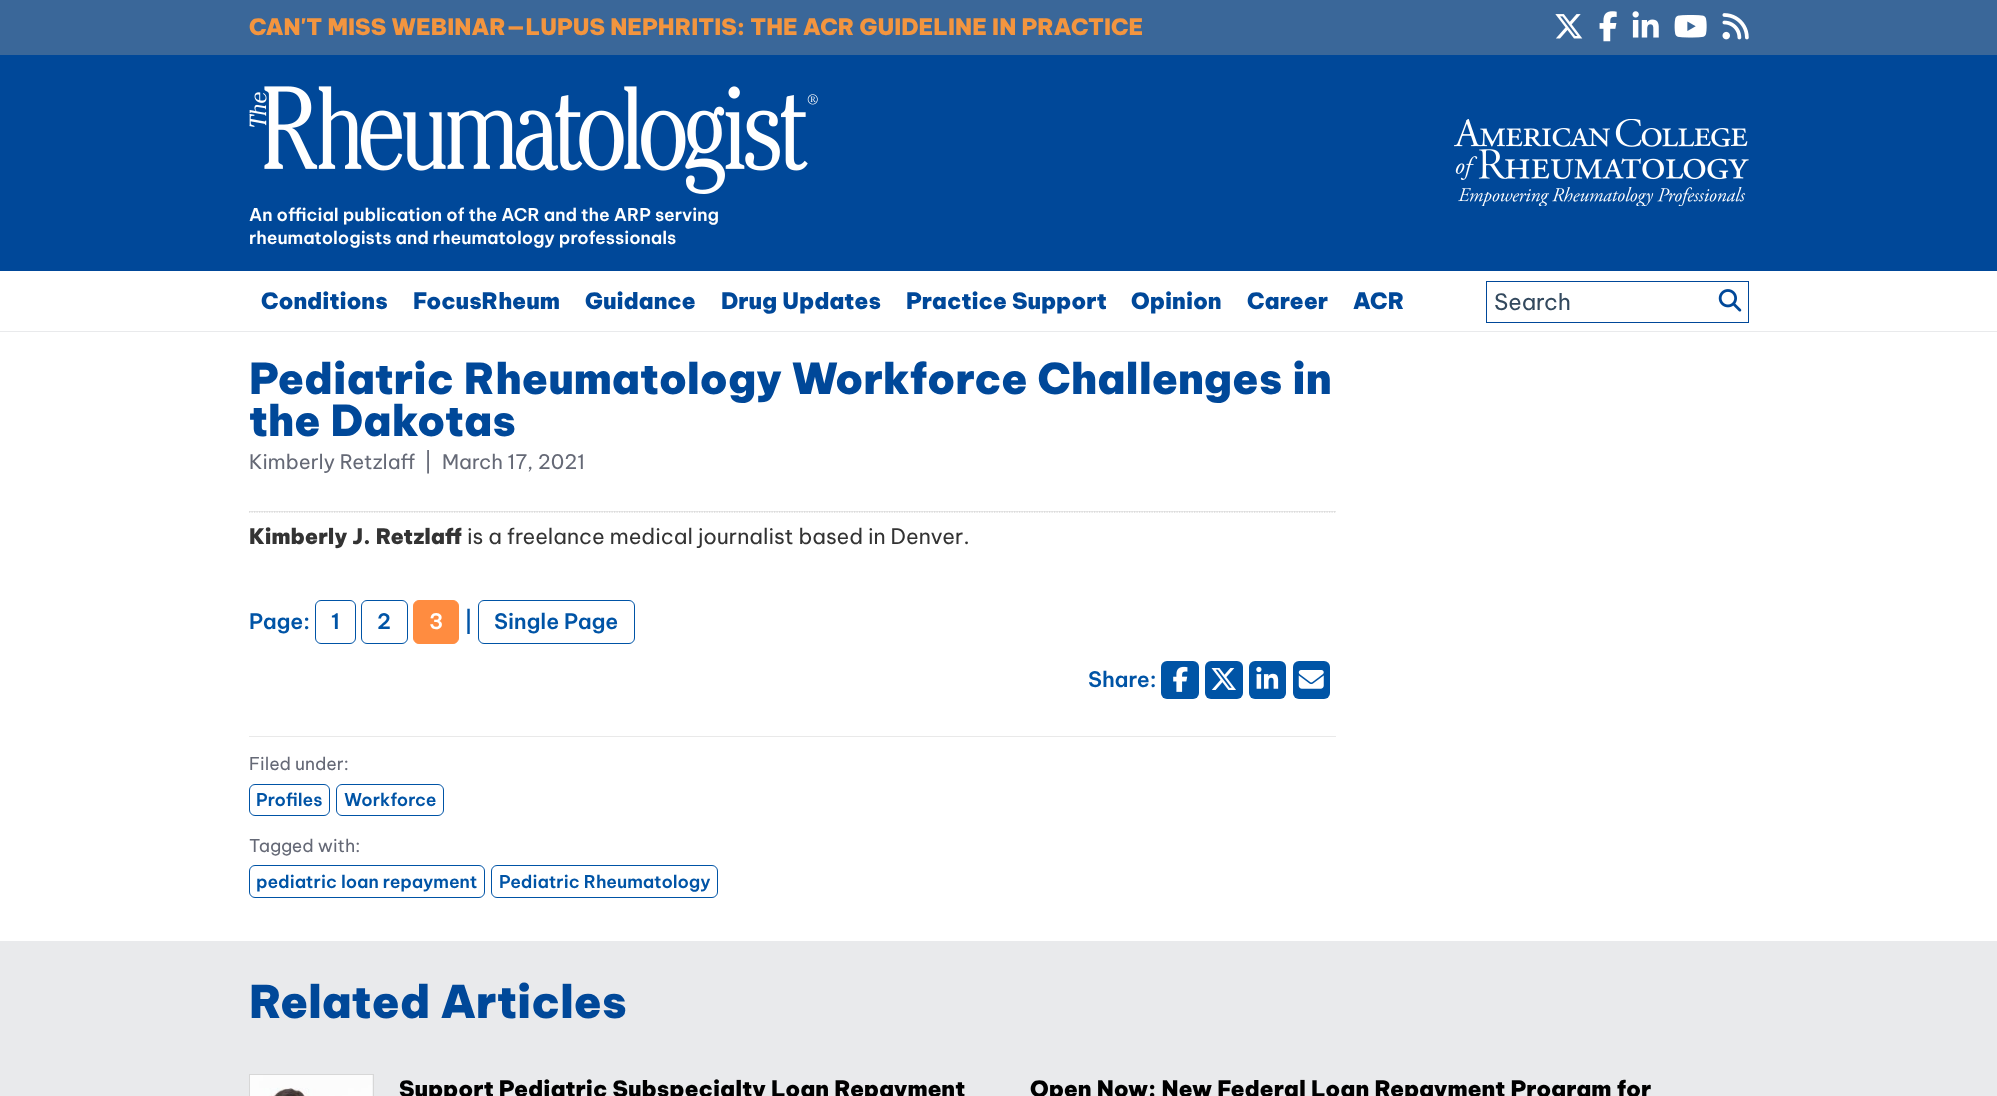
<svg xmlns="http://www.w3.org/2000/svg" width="1997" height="1096">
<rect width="100%" height="100%" fill="#fff"/>
<rect width="1997" height="55" fill="#3a6799"/>
<text x="249" y="35" style="font-family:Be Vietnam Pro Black;font-size:22.5px;font-weight:900;fill:#f3953f">CAN'T MISS WEBINAR—LUPUS NEPHRITIS: THE ACR GUIDELINE IN PRACTICE</text>
<image x="1555" y="14" width="28" height="25" href="media/1.png"/>
<image x="1599" y="11" width="18" height="31" href="media/2.png"/>
<image x="1632" y="11" width="27" height="27" href="media/3.png"/>
<image x="1674" y="15" width="33" height="23" href="media/4.png"/>
<image x="1722" y="13" width="27" height="27" href="media/5.png"/>
<rect y="55" width="1997" height="216" fill="#004899"/>
<image x="1454" y="119" width="295" height="87" href="media/6.png"/>
<image x="249" y="86" width="569" height="108" href="media/7.png"/>
<text x="249" y="221" style="font-family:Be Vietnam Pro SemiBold;font-size:17.5px;font-weight:600;fill:#fff">An official publication of the ACR and the ARP serving</text>
<text x="249" y="244" style="font-family:Be Vietnam Pro SemiBold;font-size:17.5px;font-weight:600;fill:#fff">rheumatologists and rheumatology professionals</text>
<rect y="331" width="1997" height="1" fill="#e9eaec"/>
<text x="261" y="309" style="font-family:Be Vietnam Pro Black;font-size:22.5px;font-weight:900;fill:#004899">Conditions</text>
<text x="413" y="309" style="font-family:Be Vietnam Pro Black;font-size:22.5px;font-weight:900;fill:#004899">FocusRheum</text>
<text x="585" y="309" style="font-family:Be Vietnam Pro Black;font-size:22.5px;font-weight:900;fill:#004899">Guidance</text>
<text x="721" y="309" style="font-family:Be Vietnam Pro Black;font-size:22.5px;font-weight:900;fill:#004899">Drug Updates</text>
<text x="906" y="309" style="font-family:Be Vietnam Pro Black;font-size:22.5px;font-weight:900;fill:#004899">Practice Support</text>
<text x="1131" y="309" style="font-family:Be Vietnam Pro Black;font-size:22.5px;font-weight:900;fill:#004899">Opinion</text>
<text x="1247" y="309" style="font-family:Be Vietnam Pro Black;font-size:22.5px;font-weight:900;fill:#004899">Career</text>
<text x="1353" y="309" style="font-family:Be Vietnam Pro Black;font-size:22.5px;font-weight:900;fill:#004899">ACR</text>
<rect x="1486.5" y="281.5" width="262" height="41" fill="none" stroke="#004899"/>
<text x="1494" y="310" style="font-family:Be Vietnam Pro;font-size:22.5px;fill:#33495e">Search</text>
<image x="1718" y="289" width="24" height="23" href="media/8.png"/>
<text x="249" y="394" style="font-family:Be Vietnam Pro Black;font-size:42.5px;font-weight:900;fill:#004899">Pediatric Rheumatology Workforce Challenges in</text>
<text x="249" y="436" style="font-family:Be Vietnam Pro Black;font-size:42.5px;font-weight:900;fill:#004899">the Dakotas</text>
<text x="249" y="469" style="font-family:Be Vietnam Pro;font-size:20px;fill:#656976">Kimberly Retzlaff</text>
<text x="424" y="469" style="font-family:Be Vietnam Pro;font-size:20px;fill:#656976">|</text>
<text x="442" y="469" style="font-family:Be Vietnam Pro;font-size:20px;fill:#656976">March 17, 2021</text>
<rect x="249" y="511" width="1087" height="1" fill="#eaeaea"/>
<path d="M249 512h1087" fill="none" stroke="#ccc" stroke-width="1.2" stroke-dasharray="1.25 1.25"/>
<text x="249" y="544" style="font-family:Be Vietnam Pro Black;font-size:21.25px;font-weight:900;fill:#333">Kimberly J. Retzlaff</text>
<text x="467" y="544" style="font-family:Be Vietnam Pro;font-size:21.25px;fill:#333">is a freelance medical journalist based in Denver.</text>
<text x="249" y="629" style="font-family:Be Vietnam Pro SemiBold;font-size:21.25px;font-weight:600;fill:#0054a6">Page:</text>
<rect x="315.5" y="600.5" width="40" height="43" rx="5.5" fill="none" stroke="#0054a6"/>
<text x="331" y="629" style="font-family:Be Vietnam Pro SemiBold;font-size:21.25px;font-weight:600;fill:#0054a6">1</text>
<rect x="361.5" y="600.5" width="46" height="43" rx="5.5" fill="none" stroke="#0054a6"/>
<text x="377" y="629" style="font-family:Be Vietnam Pro SemiBold;font-size:21.25px;font-weight:600;fill:#0054a6">2</text>
<rect x="413.5" y="600.5" width="45" height="43" rx="5.5" fill="#ff8c40" stroke="#ff8c40"/>
<text x="429" y="629" style="font-family:Be Vietnam Pro SemiBold;font-size:21.25px;font-weight:600;fill:#fff">3</text>
<text x="464" y="629" style="font-family:Be Vietnam Pro SemiBold;font-size:21.25px;font-weight:600;fill:#0054a6">|</text>
<rect x="478.5" y="600.5" width="156" height="43" rx="5.5" fill="none" stroke="#0054a6"/>
<text x="494" y="629" style="font-family:Be Vietnam Pro SemiBold;font-size:21.25px;font-weight:600;fill:#0054a6">Single Page</text>
<text x="1088" y="687" style="font-family:Be Vietnam Pro SemiBold;font-size:21.25px;font-weight:600;fill:#0054a6">Share:</text>
<rect x="1161" y="661" width="38" height="38" rx="6" fill="#0054a6"/>
<image x="1173" y="666" width="15" height="26" href="media/9.png"/>
<rect x="1205" y="661" width="38" height="38" rx="6" fill="#0054a6"/>
<image x="1211" y="668" width="25" height="22" href="media/10.png"/>
<rect x="1249" y="661" width="37" height="38" rx="6" fill="#0054a6"/>
<image x="1256" y="666" width="23" height="23" href="media/11.png"/>
<rect x="1293" y="661" width="37" height="38" rx="6" fill="#0054a6"/>
<image x="1298" y="670" width="26" height="19" href="media/12.png"/>
<rect x="249" y="736" width="1087" height="1" fill="#e9e9e9"/>
<text x="249" y="770" style="font-family:Be Vietnam Pro;font-size:17.5px;fill:#656976">Filed under:</text>
<rect x="249.5" y="784.5" width="80" height="31" rx="5.5" fill="none" stroke="#0054a6"/>
<text x="256" y="806" style="font-family:Be Vietnam Pro SemiBold;font-size:17.5px;font-weight:600;fill:#0054a6">Profiles</text>
<rect x="336.5" y="784.5" width="107" height="31" rx="5.5" fill="none" stroke="#0054a6"/>
<text x="344" y="806" style="font-family:Be Vietnam Pro SemiBold;font-size:17.5px;font-weight:600;fill:#0054a6">Workforce</text>
<text x="249" y="852" style="font-family:Be Vietnam Pro;font-size:17.5px;fill:#656976">Tagged with:</text>
<rect x="249.5" y="865.5" width="235" height="32" rx="5.5" fill="none" stroke="#0054a6"/>
<text x="256" y="888" style="font-family:Be Vietnam Pro SemiBold;font-size:17.5px;font-weight:600;fill:#0054a6">pediatric loan repayment</text>
<rect x="491.5" y="865.5" width="226" height="32" rx="5.5" fill="none" stroke="#0054a6"/>
<text x="499" y="888" style="font-family:Be Vietnam Pro SemiBold;font-size:17.5px;font-weight:600;fill:#0054a6">Pediatric Rheumatology</text>
<rect y="941" width="1997" height="155" fill="#e9eaec"/>
<text x="249" y="1018" style="font-family:Be Vietnam Pro Black;font-size:45px;font-weight:900;fill:#004899">Related Articles</text>
<rect x="249.5" y="1074.5" width="124" height="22" fill="none" stroke="#d7d7d7"/>
<image x="250" y="1075" width="123" height="21" href="media/13.png"/>
<text x="399" y="1097" style="font-family:Be Vietnam Pro Black;font-size:22.5px;font-weight:900;fill:#000">Support Pediatric Subspecialty Loan Repayment</text>
<text x="1030" y="1097" style="font-family:Be Vietnam Pro Black;font-size:22.5px;font-weight:900;fill:#000">Open Now: New Federal Loan Repayment Program for</text>
</svg>
